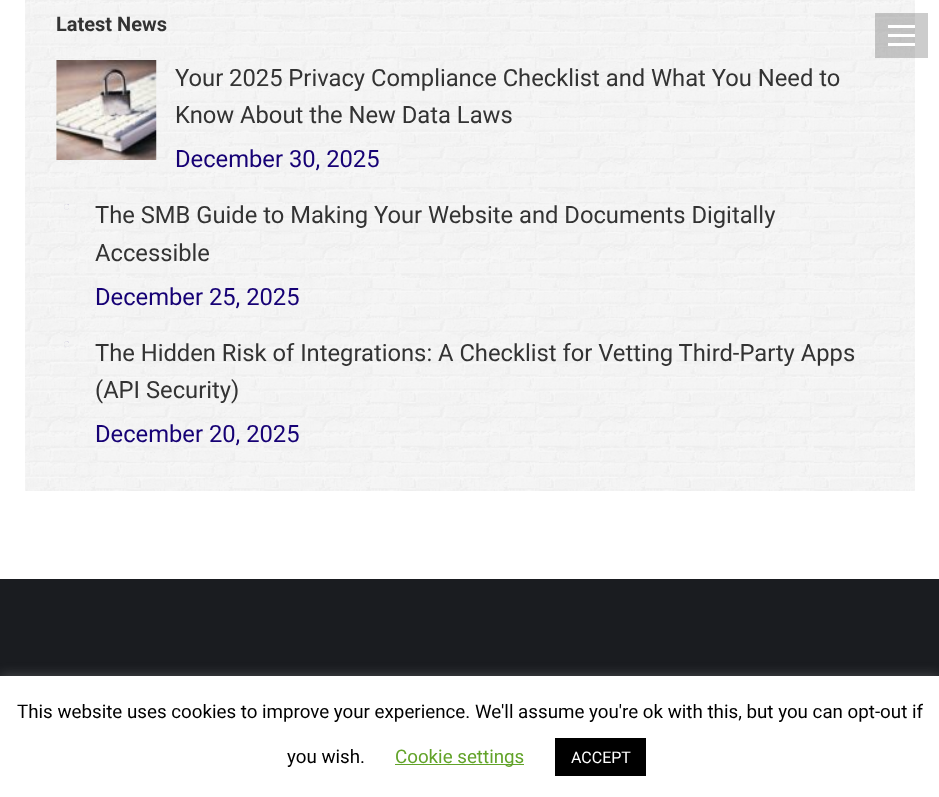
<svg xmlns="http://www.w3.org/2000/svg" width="939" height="797">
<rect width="100%" height="100%" fill="#fff"/>
<image x="25" y="0" width="890" height="491" href="media/1.png"/>
<text x="56" y="31" style="font-family:Roboto;font-size:20px;font-weight:bold;fill:#333">Latest News</text>
<image x="56" y="60" width="101" height="100" href="media/2.png"/>
<text x="175" y="86" style="font-family:Roboto;font-size:23.75px;fill:#333">Your 2025 Privacy Compliance Checklist and What You Need to</text>
<text x="175" y="123" style="font-family:Roboto;font-size:23.75px;fill:#333">Know About the New Data Laws</text>
<text x="175" y="167" style="font-family:Roboto;font-size:23.75px;fill:#160175">December 30, 2025</text>
<image x="64" y="204" width="5" height="6" href="media/3.png"/>
<text x="95" y="223" style="font-family:Roboto;font-size:23.75px;fill:#333">The SMB Guide to Making Your Website and Documents Digitally</text>
<text x="95" y="261" style="font-family:Roboto;font-size:23.75px;fill:#333">Accessible</text>
<text x="95" y="305" style="font-family:Roboto;font-size:23.75px;fill:#160175">December 25, 2025</text>
<image x="64" y="341" width="5" height="6" href="media/4.png"/>
<text x="95" y="361" style="font-family:Roboto;font-size:23.75px;fill:#333">The Hidden Risk of Integrations: A Checklist for Vetting Third-Party Apps</text>
<text x="95" y="398" style="font-family:Roboto;font-size:23.75px;fill:#333">(API Security)</text>
<text x="95" y="442" style="font-family:Roboto;font-size:23.75px;fill:#160175">December 20, 2025</text>
<rect x="875" y="13" width="53" height="45" fill="#00000033"/>
<rect x="888" y="25" width="27" height="3" fill="#fff"/>
<rect x="888" y="34" width="27" height="3" fill="#fff"/>
<rect x="888" y="43" width="27" height="3" fill="#fff"/>
<rect y="579" width="939" height="97" fill="#1a1c20"/>
<rect y="675" width="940" height="121" fill="#acabab4d" filter="blur(6px)"/>
<rect y="676" width="939" height="121" fill="#fff"/>
<text x="17" y="718" style="font-family:Roboto;font-size:18.75px;fill:#000">This website uses cookies to improve your experience. We'll assume you're ok with this, but you can opt-out if</text>
<text x="287" y="763" style="font-family:Roboto;font-size:18.75px;fill:#000">you wish.</text>
<rect x="395" y="764" width="129" height="1" fill="#62a329"/>
<text x="395" y="763" style="font-family:Roboto;font-size:18.75px;fill:#62a329">Cookie settings</text>
<rect x="555" y="738" width="91" height="38" fill="#000"/>
<text x="571" y="763" style="font-family:Roboto;font-size:16px;fill:#fff">ACCEPT</text>
</svg>
